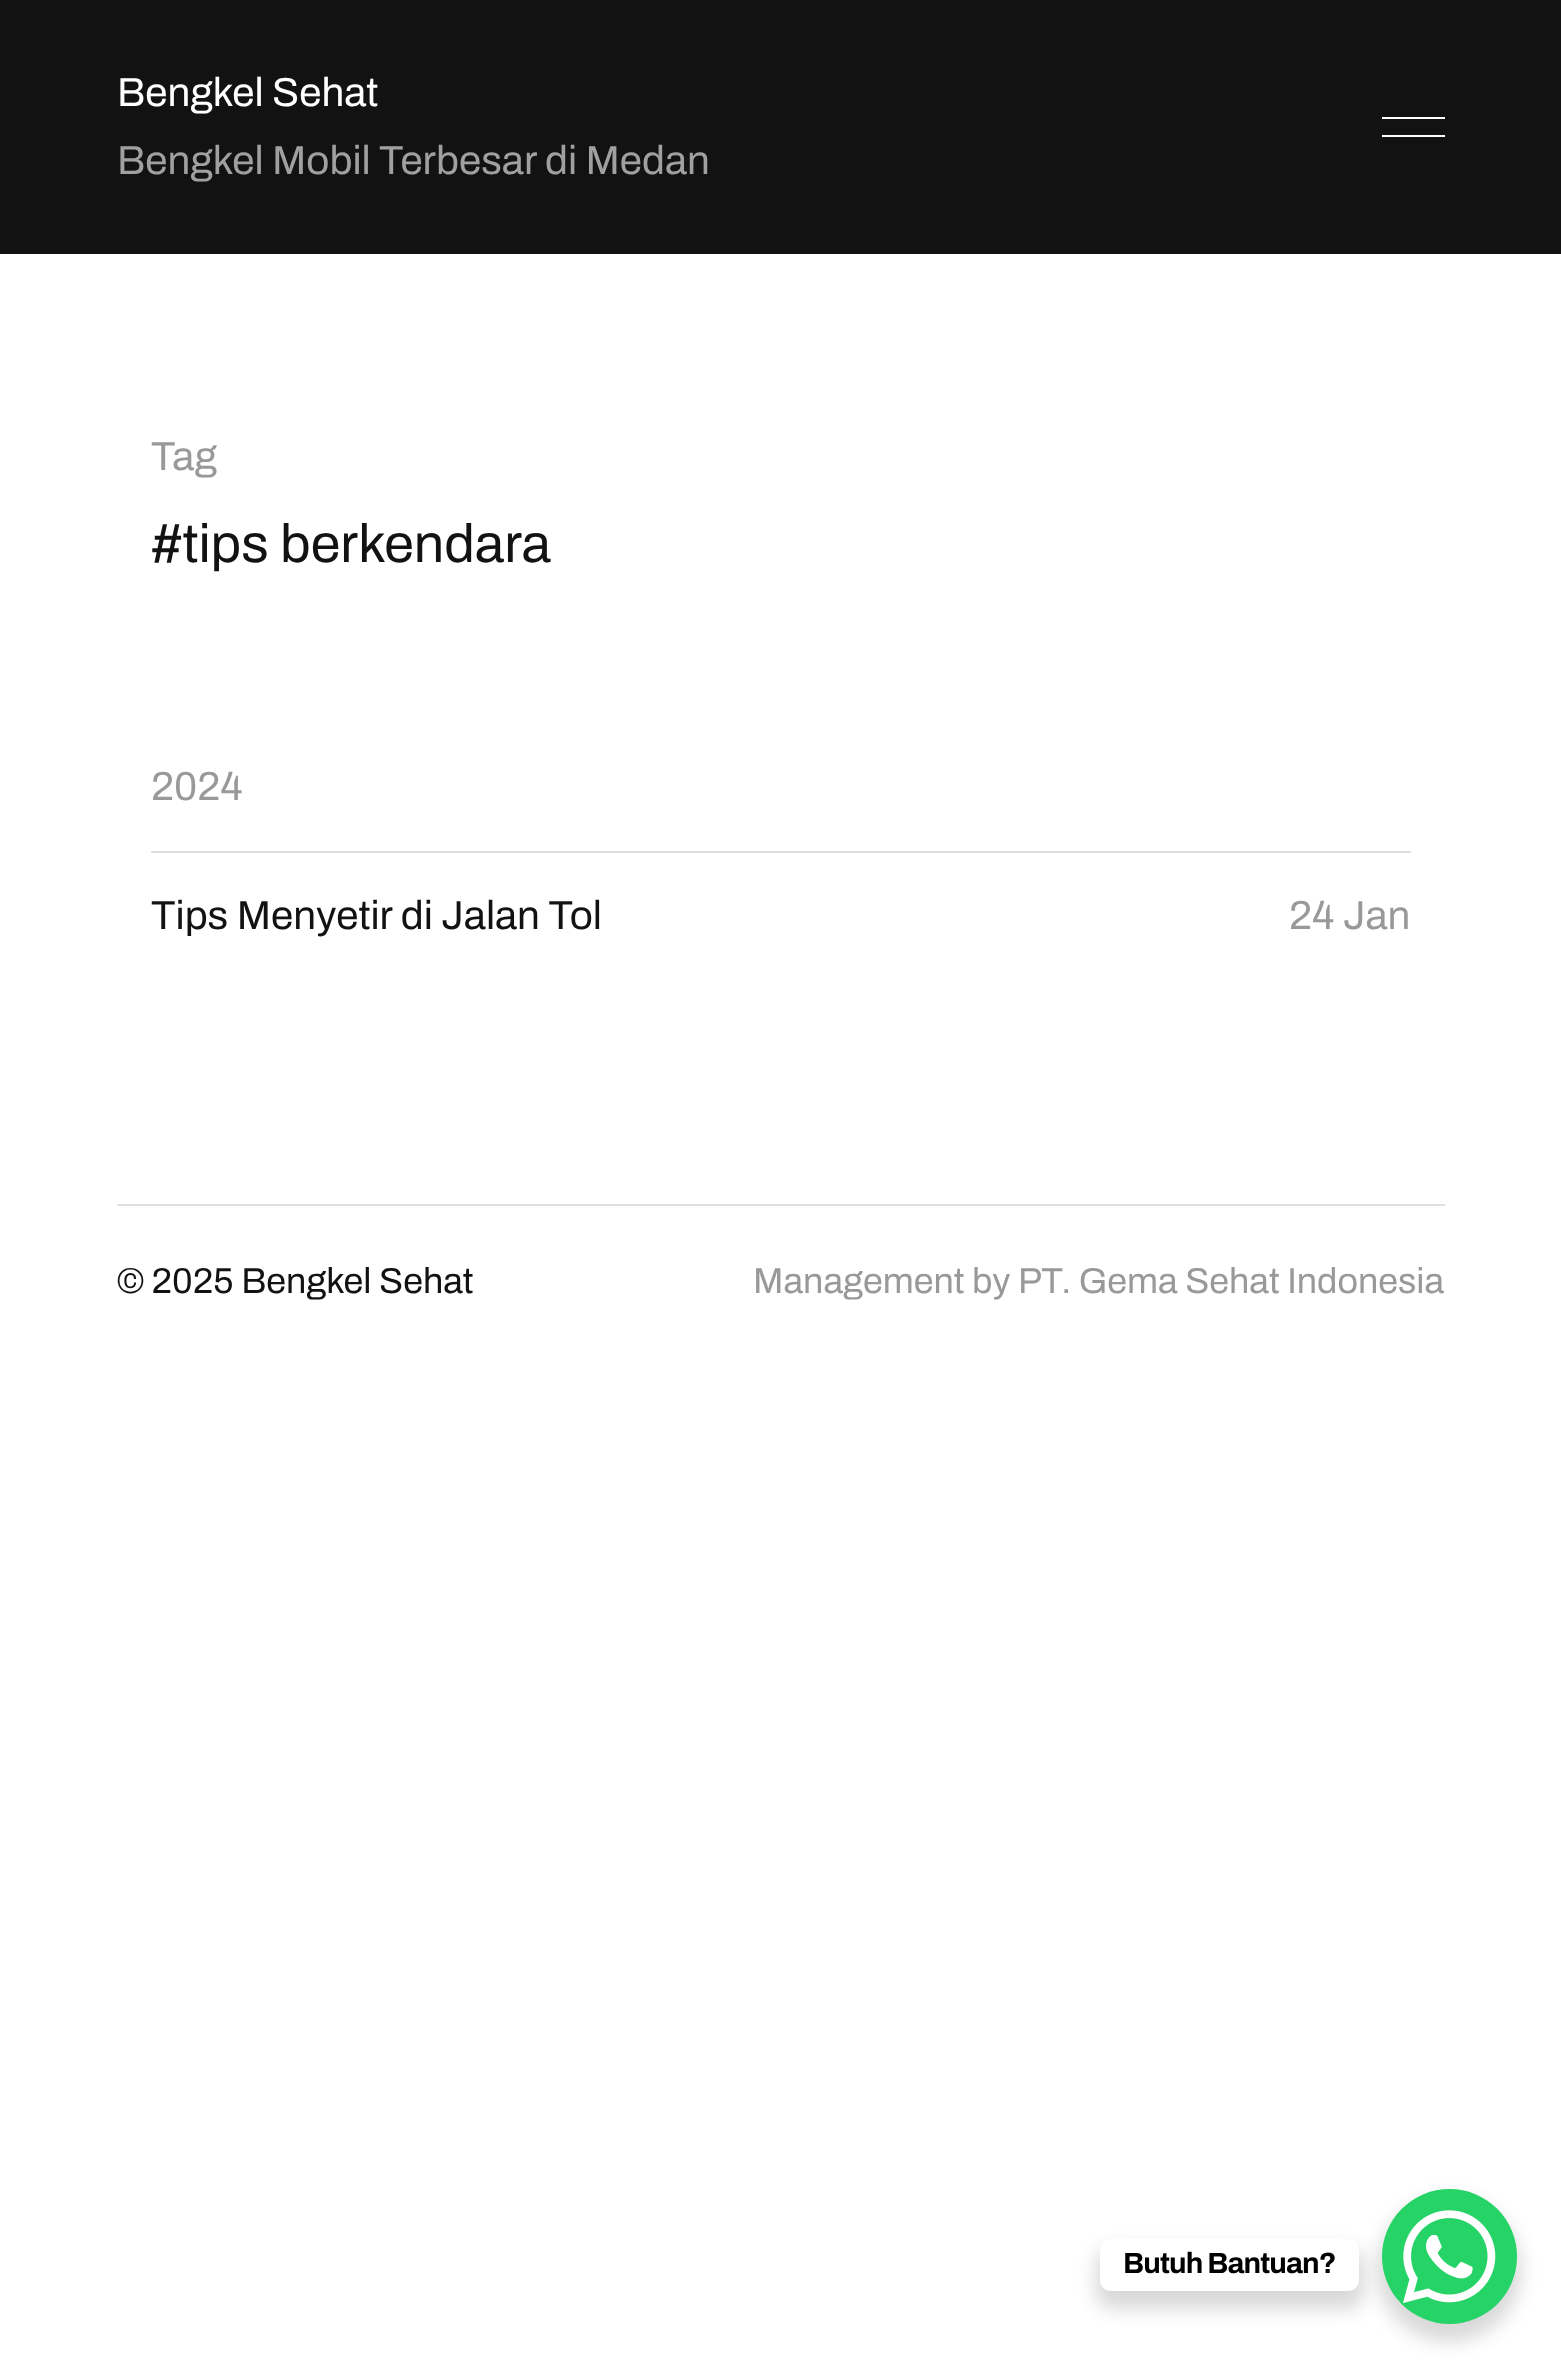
<svg xmlns="http://www.w3.org/2000/svg" width="1561" height="2369">
<rect width="100%" height="100%" fill="#fff"/>
<rect width="1561" height="254" fill="#121212"/>
<text x="117" y="106" style="font-family:Archivo;font-size:40.5px;font-weight:600;fill:#fff">Bengkel Sehat</text>
<rect x="1382" y="117" width="63" height="2" fill="#fff"/>
<rect x="1382" y="135" width="63" height="2" fill="#fff"/>
<text x="117" y="174" style="font-family:Archivo;font-size:40.5px;font-weight:600;fill:#a0a0a0">Bengkel Mobil Terbesar di Medan</text>
<text x="151" y="470" style="font-family:Archivo;font-size:40.5px;font-weight:600;fill:#99999b">Tag</text>
<text x="151" y="562" style="font-family:Archivo;font-size:54px;font-weight:600;fill:#121212">#tips berkendara</text>
<text x="151" y="800" style="font-family:Archivo;font-size:40.5px;font-weight:600;fill:#99999b">2024</text>
<rect x="151" y="851" width="1260" height="2" fill="#dfdfe0"/>
<text x="151" y="929" style="font-family:Archivo;font-size:40.5px;font-weight:600;fill:#121212">Tips Menyetir di Jalan Tol</text>
<text x="1289" y="929" style="font-family:Archivo;font-size:40.5px;font-weight:600;fill:#99999b">24 Jan</text>
<rect x="117" y="1204" width="1328" height="2" fill="#dfdfe0"/>
<text x="117" y="1293" style="font-family:Archivo;font-size:36px;font-weight:600;fill:#121212">© 2025 Bengkel Sehat</text>
<text x="753" y="1293" style="font-family:Archivo;font-size:36px;font-weight:600;fill:#99999b">Management by PT. Gema Sehat Indonesia</text>
<rect x="1377" y="2198" width="144" height="144" rx="72" fill="#00000026" filter="blur(9px)"/>
<circle cx="1449.5" cy="2256.5" r="67.5" fill="#25d366"/>
<rect x="1096" y="2248" width="268" height="61" rx="16" fill="#00000026" filter="blur(9px)"/>
<rect x="1100" y="2239" width="259" height="52" rx="11" fill="#fff"/>
<text x="1123" y="2273" style="font-family:'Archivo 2';font-size:29.25px;font-weight:600;letter-spacing:-0.9px;fill:#000">Butuh Bantuan?</text>
<image x="1403" y="2210" width="93" height="93" href="media/1.png"/>
</svg>
